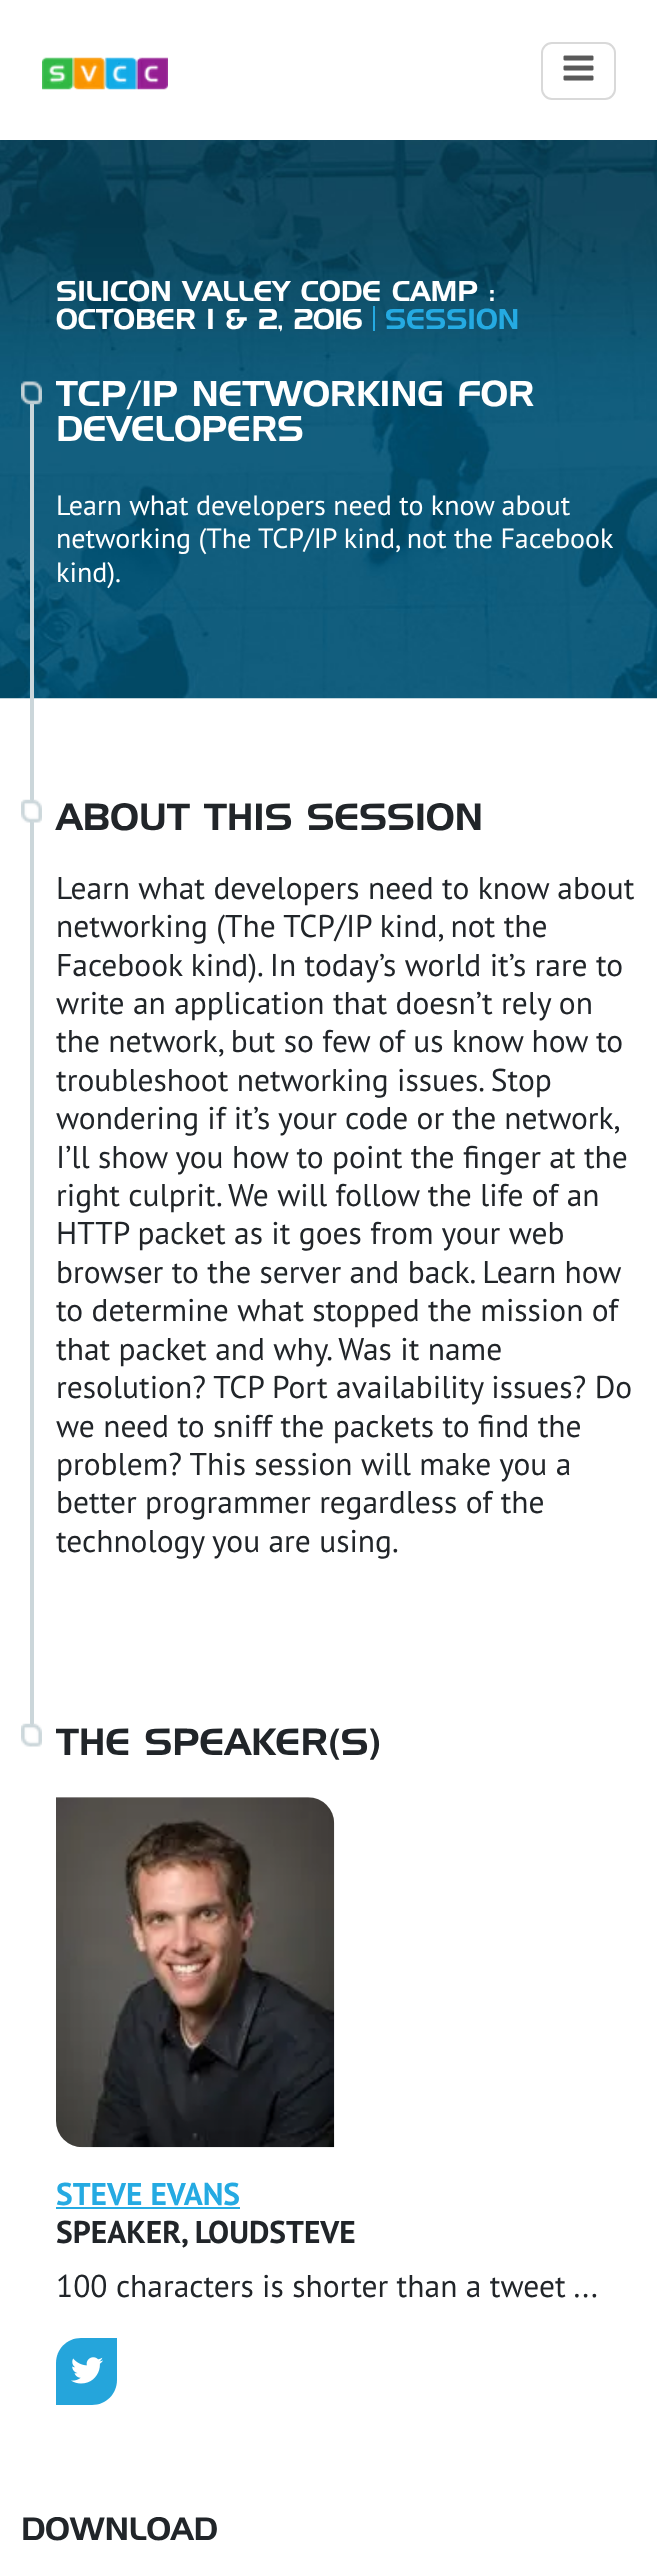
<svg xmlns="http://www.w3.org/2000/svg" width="657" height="2567">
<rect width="100%" height="100%" fill="#fff"/>
<image x="42" y="57" width="126" height="33" href="media/1.png"/>
<rect x="542" y="43" width="73" height="56" rx="10" fill="none" stroke="#d9d9d9" stroke-width="2"/>
<image x="563" y="55" width="31" height="26" href="media/2.png"/>
<image x="0" y="140" width="657" height="559" href="media/3.png"/>
<text x="56" y="301" style="font-family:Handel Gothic;font-size:28px;font-weight:500;fill:#fff">SILICON VALLEY CODE CAMP :</text>
<text x="56" y="329" style="font-family:Handel Gothic;font-size:28px;font-weight:500;fill:#fff">OCTOBER 1 &amp; 2, 2016</text>
<rect x="373" y="306" width="2" height="25" fill="#25aae2"/>
<text x="385" y="329" style="font-family:Handel Gothic;font-size:28px;font-weight:500;fill:#25aae2">SESSION</text>
<rect x="30" y="404" width="4" height="396" fill="#cbd6da"/>
<image x="21" y="381" width="21" height="24" href="media/4.png"/>
<text x="56" y="406" style="font-family:Handel Gothic;font-size:35px;font-weight:500;fill:#fff">TCP/IP NETWORKING FOR</text>
<text x="56" y="441" style="font-family:Handel Gothic;font-size:35px;font-weight:500;fill:#fff">DEVELOPERS</text>
<text x="56" y="515" style="font-family:PT Sans;font-size:28px;fill:#fff">Learn what developers need to know about</text>
<text x="56" y="548" style="font-family:PT Sans;font-size:28px;fill:#fff">networking (The TCP/IP kind, not the Facebook</text>
<text x="56" y="582" style="font-family:PT Sans;font-size:28px;fill:#fff">kind).</text>
<rect x="30" y="822" width="4" height="902" fill="#cbd6da"/>
<image x="21" y="799" width="21" height="24" href="media/5.png"/>
<text x="56" y="830" style="font-family:Handel Gothic;font-size:36.75px;font-weight:500;fill:#212529">ABOUT THIS SESSION</text>
<text x="56" y="899" style="font-family:PT Sans;font-size:31.5px;fill:#212529">Learn what developers need to know about</text>
<text x="56" y="937" style="font-family:PT Sans;font-size:31.5px;fill:#212529">networking (The TCP/IP kind, not the</text>
<text x="56" y="976" style="font-family:PT Sans;font-size:31.5px;fill:#212529">Facebook kind). In today’s world it’s rare to</text>
<text x="56" y="1014" style="font-family:PT Sans;font-size:31.5px;fill:#212529">write an application that doesn’t rely on</text>
<text x="56" y="1052" style="font-family:PT Sans;font-size:31.5px;fill:#212529">the network, but so few of us know how to</text>
<text x="56" y="1091" style="font-family:PT Sans;font-size:31.5px;fill:#212529">troubleshoot networking issues. Stop</text>
<text x="56" y="1129" word-spacing="-0.25" style="font-family:PT Sans;font-size:31.5px;fill:#212529">wondering if it’s your code or the network,</text>
<text x="56" y="1168" style="font-family:PT Sans;font-size:31.5px;fill:#212529">I’ll show you how to point the finger at the</text>
<text x="56" y="1206" style="font-family:PT Sans;font-size:31.5px;fill:#212529">right culprit.</text>
<text x="228" y="1206" style="font-family:PT Sans;font-size:31.5px;fill:#212529">We will follow the life of an</text>
<text x="56" y="1244" style="font-family:PT Sans;font-size:31.5px;fill:#212529">HTTP packet as it goes from your web</text>
<text x="56" y="1283" style="font-family:PT Sans;font-size:31.5px;fill:#212529">browser to the server and back. Learn how</text>
<text x="56" y="1321" style="font-family:PT Sans;font-size:31.5px;fill:#212529">to determine what stopped the mission of</text>
<text x="56" y="1360" style="font-family:PT Sans;font-size:31.5px;fill:#212529">that packet and why. Was it name</text>
<text x="56" y="1398" style="font-family:PT Sans;font-size:31.5px;fill:#212529">resolution? TCP Port availability issues? Do</text>
<text x="56" y="1437" style="font-family:PT Sans;font-size:31.5px;fill:#212529">we need to sniff the packets to find the</text>
<text x="56" y="1475" style="font-family:PT Sans;font-size:31.5px;fill:#212529">problem? This session will make you a</text>
<text x="56" y="1513" style="font-family:PT Sans;font-size:31.5px;fill:#212529">better programmer regardless of the</text>
<text x="56" y="1552" style="font-family:PT Sans;font-size:31.5px;fill:#212529">technology you are using.</text>
<image x="21" y="1723" width="21" height="24" href="media/6.png"/>
<text x="56" y="1755" style="font-family:Handel Gothic;font-size:36.75px;font-weight:500;fill:#212529">THE SPEAKER(S)</text>
<path d="M56 1797h252c14.5 0 26 11.5 26 26v324h-252c-14.5 0-26-11.5-26-26z" fill="#e1e1e2"/>
<image x="56" y="1797" width="279" height="351" href="media/7.png"/>
<text x="56" y="2205" style="font-family:PT Sans;font-size:31.5px;font-weight:bold;fill:#25aae2">STEVE EVANS</text>
<rect x="56" y="2207" width="184" height="2" fill="#25aae2"/>
<text x="56" y="2243" style="font-family:PT Sans;font-size:31.5px;font-weight:bold;fill:#212529">SPEAKER, LOUDSTEVE</text>
<text x="56" y="2297" style="font-family:PT Sans;font-size:31.5px;fill:#212529">100 characters is shorter than a tweet ...</text>
<path d="M81 2338h36v42c0 14-11 25-25 25h-36v-42c0-14 11-25 25-25z" fill="#25a5db"/>
<image x="71" y="2357" width="32" height="27" href="media/8.png"/>
<text x="21" y="2540" style="font-family:Handel Gothic;font-size:31.5px;font-weight:500;fill:#212529">DOWNLOAD</text>
</svg>
